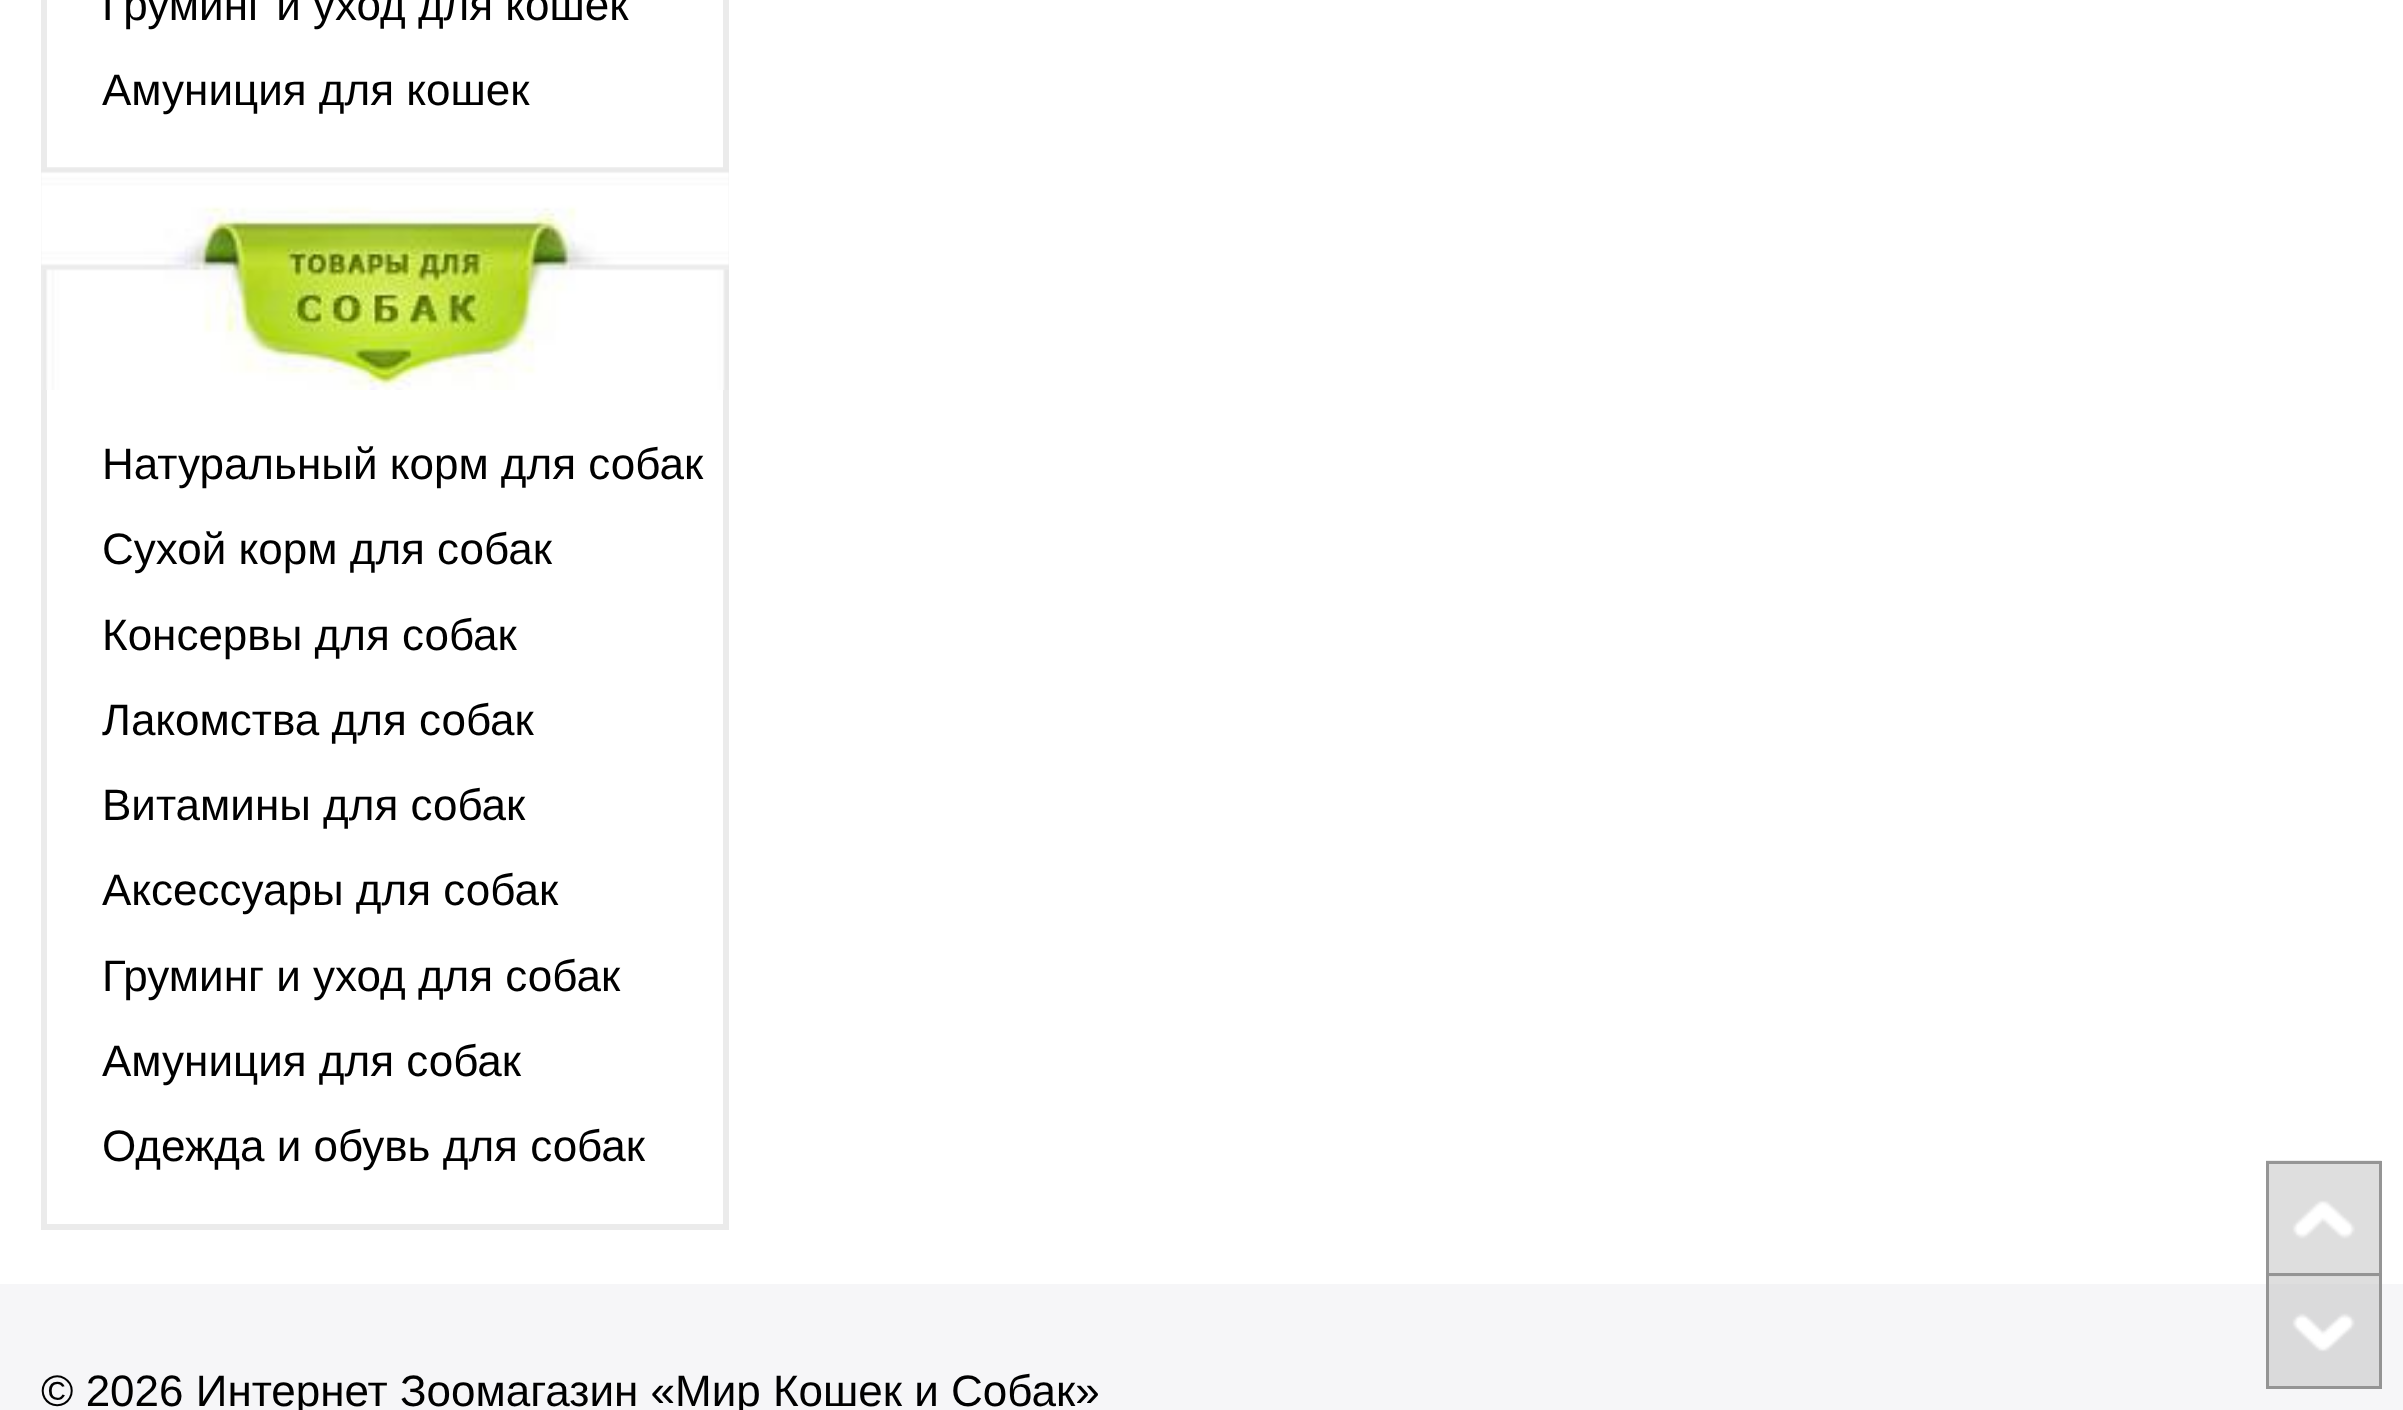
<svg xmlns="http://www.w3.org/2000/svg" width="2403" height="1410">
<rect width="100%" height="100%" fill="#fff"/>
<rect x="723" width="6" height="1229" fill="#ebebeb"/>
<rect x="41" y="1224" width="688" height="6" fill="#ebebeb"/>
<rect x="41" width="6" height="1229" fill="#ebebeb"/>
<text x="102" y="20" style="font-family:Liberation Sans;font-size:44px;fill:#000">Груминг и уход для кошек</text>
<text x="102" y="105" style="font-family:Liberation Sans;font-size:44px;fill:#000">Амуниция для кошек</text>
<image x="41" y="167" width="688" height="223" href="media/1.png"/>
<text x="102" y="479" style="font-family:Liberation Sans;font-size:44px;fill:#000">Натуральный корм для собак</text>
<text x="102" y="564" style="font-family:Liberation Sans;font-size:44px;fill:#000">Cухой корм для собак</text>
<text x="102" y="650" style="font-family:Liberation Sans;font-size:44px;fill:#000">Консервы для собак</text>
<text x="102" y="735" style="font-family:Liberation Sans;font-size:44px;fill:#000">Лакомства для собак</text>
<text x="102" y="820" style="font-family:Liberation Sans;font-size:44px;fill:#000">Витамины для собак</text>
<text x="102" y="905" style="font-family:Liberation Sans;font-size:44px;fill:#000">Аксессуары для собак</text>
<text x="102" y="991" style="font-family:Liberation Sans;font-size:44px;fill:#000">Груминг и уход для собак</text>
<text x="102" y="1076" style="font-family:Liberation Sans;font-size:44px;fill:#000">Амуниция для собак</text>
<text x="102" y="1161" style="font-family:Liberation Sans;font-size:44px;fill:#000">Одежда и обувь для собак</text>
<rect y="1284" width="2403" height="126" fill="#f6f6f8"/>
<text x="41" y="1406" style="font-family:Liberation Sans;font-size:44px;fill:#000">© 2026 Интернет Зоомагазин «Мир Кошек и Собак»</text>
<image x="2266" y="1160" width="116" height="117" href="media/2.png"/>
<rect x="2267.5" y="1162.5" width="113" height="112" fill="none" stroke="#949494fc" stroke-width="3"/>
<image x="2269" y="1276" width="110" height="110" href="media/3.png"/>
<rect x="2267.5" y="1274.5" width="113" height="113" fill="none" stroke="#949494" stroke-width="3"/>
</svg>
